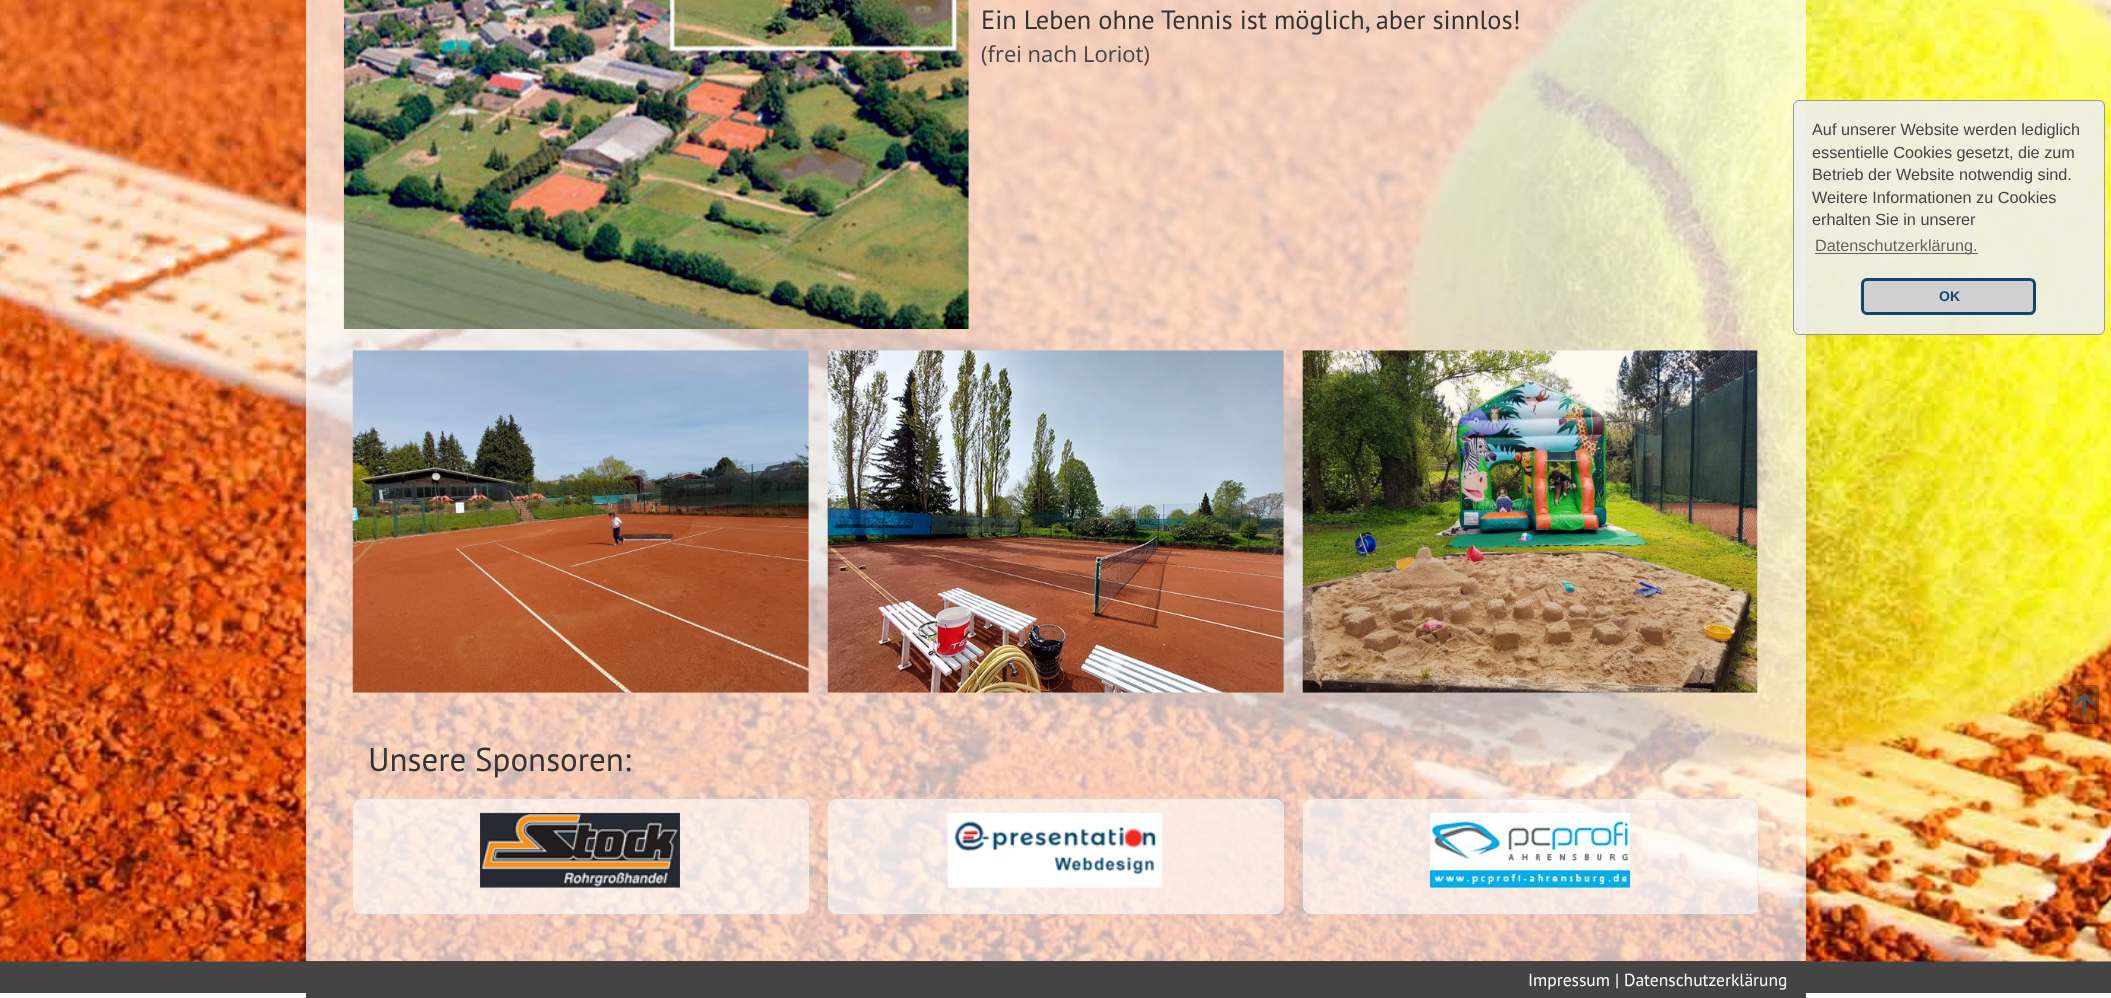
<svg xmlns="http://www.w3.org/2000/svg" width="2111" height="998">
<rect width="100%" height="100%" fill="#f9f9f9"/>
<rect y="961" width="2111" height="32" fill="#444"/>
<image x="0" y="0" width="2111" height="962" href="media/1.png"/>
<rect x="306" width="1500" height="961" fill="#ffffffb3"/>
<image x="343" y="0" width="626" height="329" href="media/2.png"/>
<text x="981" y="29" style="font-family:PT Sans;font-size:26.4px;fill:#333">Ein Leben ohne Tennis ist möglich, aber sinnlos!</text>
<text x="981" y="62" style="font-family:Open Sans;font-size:22px;fill:#444">(frei nach Loriot)</text>
<image x="352" y="350" width="457" height="343" href="media/3.png"/>
<image x="827" y="350" width="457" height="343" href="media/4.png"/>
<image x="1302" y="350" width="456" height="343" href="media/5.png"/>
<text x="368" y="771" style="font-family:PT Sans;font-size:33px;fill:#333">Unsere Sponsoren:</text>
<rect x="353.5" y="799.5" width="455" height="114" rx="7.5" fill="#ffffff99" stroke="#ededed"/>
<image x="480" y="812" width="200" height="76" href="media/6.png"/>
<rect x="828.5" y="799.5" width="455" height="114" rx="7.5" fill="#ffffff99" stroke="#ededed"/>
<image x="947" y="813" width="216" height="75" href="media/7.png"/>
<rect x="1303.5" y="799.5" width="454" height="114" rx="7.5" fill="#ffffff99" stroke="#ededed"/>
<image x="1430" y="813" width="200" height="75" href="media/8.png"/>
<rect x="306" y="961" width="1500" height="37" fill="#444"/>
<text x="1528" y="986" style="font-family:PT Sans;font-size:17.5px;fill:#fff">Impressum</text>
<text x="1615" y="986" style="font-family:PT Sans;font-size:17.5px;fill:#fff">|</text>
<text x="1624" y="986" style="font-family:PT Sans;font-size:17.5px;fill:#fff">Datenschutzerklärung</text>
<rect x="1793.5" y="100.5" width="311" height="234" rx="5.5" fill="#ededede6" stroke="#999"/>
<text x="1812" y="135" style="font-family:Liberation Sans;font-size:16.25px;fill:#444">Auf unserer Website werden lediglich</text>
<text x="1812" y="158" style="font-family:Liberation Sans;font-size:16.25px;fill:#444">essentielle Cookies gesetzt, die zum</text>
<text x="1812" y="180" style="font-family:Liberation Sans;font-size:16.25px;fill:#444">Betrieb der Website notwendig sind.</text>
<text x="1812" y="203" style="font-family:Liberation Sans;font-size:16.25px;fill:#444">Weitere Informationen zu Cookies</text>
<text x="1812" y="225" style="font-family:Liberation Sans;font-size:16.25px;fill:#444">erhalten Sie in unserer</text>
<rect x="1815" y="253" width="163" height="1" fill="#404040cc"/>
<text x="1815" y="251" style="font-family:Liberation Sans;font-size:16.25px;fill:#63635f">Datenschutzerklärung.</text>
<rect x="1862.5" y="279.5" width="172" height="34" rx="4.5" fill="#d1d1d1" stroke="#0f4674" stroke-width="3"/>
<text x="1939" y="301" style="font-family:Liberation Sans;font-size:14px;font-weight:bold;fill:#0f4674">OK</text>
<rect x="2070" y="685" width="29" height="39" rx="4" fill="#0000004d"/>
<image x="2074" y="693" width="21" height="21" href="media/9.png"/>
</svg>
